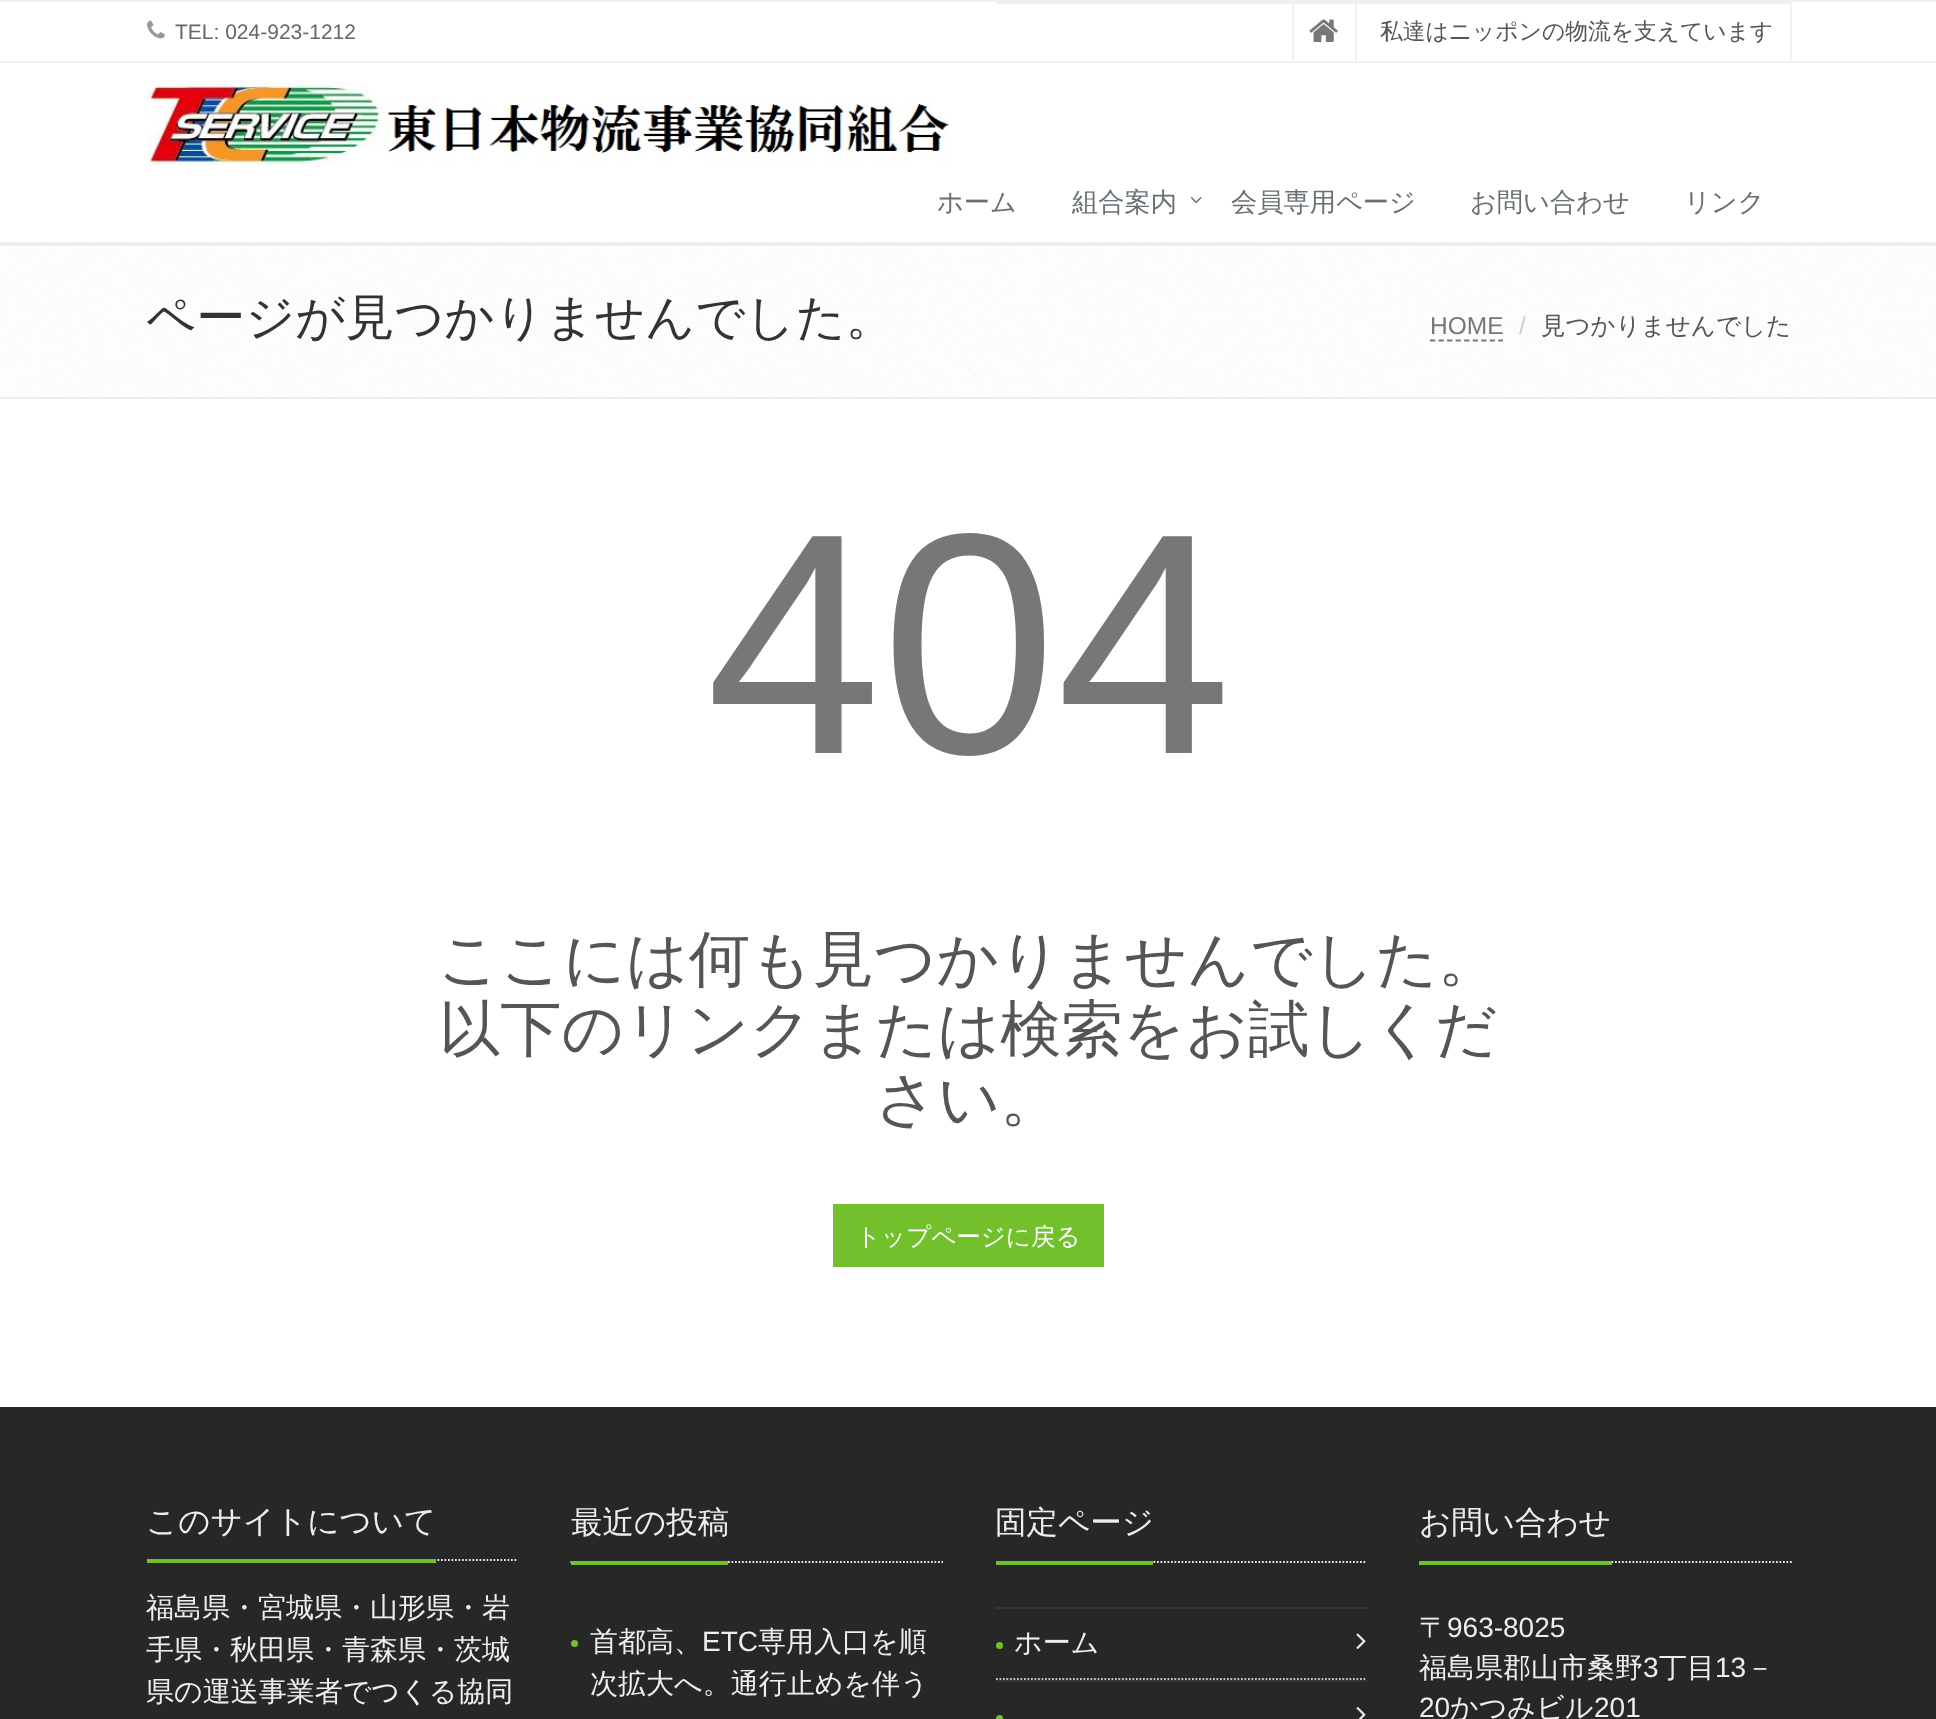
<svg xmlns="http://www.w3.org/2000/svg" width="1936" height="1719">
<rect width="100%" height="100%" fill="#fff"/>
<rect y="242" width="1936" height="4" fill="#eee"/>
<rect width="1936" height="2" fill="#f0f0f0"/>
<rect y="61" width="1936" height="2" fill="#f0f0f0"/>
<image x="147" y="20" width="18" height="19" href="media/1.png"/>
<text x="175" y="39" style="font-family:Liberation Sans;font-size:21px;fill:#666">TEL: 024-923-1212</text>
<rect x="996" y="2" width="796" height="2" fill="#f0f0f0"/>
<rect x="1790" y="2" width="2" height="58" fill="#f0f0f0"/>
<rect x="1355" y="4" width="2" height="56" fill="#f0f0f0"/>
<rect x="1292" y="4" width="2" height="56" fill="#f0f0f0"/>
<image x="1309" y="19" width="29" height="23" href="media/2.png"/>
<text x="1380" y="39" style="font-family:WenQuanYi Zen Hei;font-size:22.75px;font-weight:500;fill:#555">私達はニッポンの物流を支えています</text>
<image x="147" y="80" width="802" height="86" href="media/3.png"/>
<text x="937" y="211" style="font-family:WenQuanYi Zen Hei;font-size:26.25px;font-weight:500;fill:#687074">ホーム</text>
<text x="1072" y="211" style="font-family:WenQuanYi Zen Hei;font-size:26.25px;font-weight:500;fill:#687074">組合案内</text>
<image x="1190" y="197" width="12" height="7" href="media/4.png"/>
<text x="1231" y="211" style="font-family:WenQuanYi Zen Hei;font-size:26.25px;font-weight:500;fill:#687074">会員専用ページ</text>
<text x="1470" y="211" style="font-family:WenQuanYi Zen Hei;font-size:26.25px;font-weight:500;fill:#687074">お問い合わせ</text>
<text x="1684" y="211" style="font-family:WenQuanYi Zen Hei;font-size:26.25px;font-weight:500;fill:#687074">リンク</text>
<image x="0" y="246" width="1936" height="151" href="media/5.png"/>
<rect y="397" width="1936" height="2" fill="#eee"/>
<text x="146" y="334" style="font-family:WenQuanYi Zen Hei;font-size:49px;font-weight:500;fill:#333">ページが見つかりませんでした。</text>
<text x="1430" y="334" style="font-family:Liberation Sans;font-size:24.5px;fill:#777">HOME</text>
<path d="M1430 340.5h73" fill="none" stroke="#777" stroke-width="1.8" stroke-dasharray="5.25 3.29"/>
<text x="1519" y="334" style="font-family:Liberation Sans;font-size:24.5px;fill:#ccc">/</text>
<text x="1541" y="334" style="font-family:WenQuanYi Zen Hei;font-size:24.5px;font-weight:500;fill:#555">見つかりませんでした</text>
<text x="706" y="753" style="font-family:Liberation Sans;font-size:315px;fill:#777">404</text>
<text x="438" y="980" style="font-family:WenQuanYi Zen Hei;font-size:61.25px;font-weight:500;fill:#555">ここには何も見つかりませんでした。</text>
<text x="439" y="1050" style="font-family:WenQuanYi Zen Hei;font-size:61.25px;font-weight:500;fill:#555">以下のリンクまたは検索をお試しくだ</text>
<text x="875" y="1120" style="font-family:WenQuanYi Zen Hei;font-size:61.25px;font-weight:500;fill:#555">さい。</text>
<rect x="833" y="1204" width="271" height="63" fill="#72c02c"/>
<text x="856" y="1245" style="font-family:WenQuanYi Zen Hei;font-size:24.5px;font-weight:500;fill:#fff">トップページに戻る</text>
<rect y="1407" width="1936" height="312" fill="#272727"/>
<path d="M147 1560h371" fill="none" stroke="#e4e9f0" stroke-width="1.8" stroke-dasharray="1.75 1.75"/>
<rect x="147" y="1559" width="289" height="4" fill="#72c02c"/>
<text x="146" y="1532" style="font-family:WenQuanYi Zen Hei;font-size:31.5px;font-weight:500;fill:#eee">このサイトについて</text>
<text x="146" y="1617" style="font-family:WenQuanYi Zen Hei;font-size:28px;font-weight:500;fill:#eee">福島県・宮城県・山形県・岩</text>
<text x="146" y="1659" style="font-family:WenQuanYi Zen Hei;font-size:28px;font-weight:500;fill:#eee">手県・秋田県・青森県・茨城</text>
<text x="146" y="1701" style="font-family:WenQuanYi Zen Hei;font-size:28px;font-weight:500;fill:#eee">県の運送事業者でつくる協同</text>
<path d="M570.5 1562h372.5" fill="none" stroke="#e4e9f0" stroke-width="1.8" stroke-dasharray="1.75 1.75"/>
<rect x="571" y="1561" width="157" height="4" fill="#72c02c"/>
<text x="571" y="1533" style="font-family:WenQuanYi Zen Hei;font-size:31.5px;font-weight:500;fill:#eee">最近の投稿</text>
<circle cx="574.5" cy="1643.5" r="3.5" fill="#72c02c"/>
<text x="590" y="1651" style="font-family:WenQuanYi Zen Hei;font-size:28px;font-weight:500;fill:#eee">首都高、</text>
<text x="702" y="1651" style="font-family:Liberation Sans;font-size:28px;fill:#eee">ETC</text>
<text x="758" y="1651" style="font-family:WenQuanYi Zen Hei;font-size:28px;font-weight:500;fill:#eee">専用入口を順</text>
<text x="590" y="1693" style="font-family:WenQuanYi Zen Hei;font-size:28px;font-weight:500;fill:#eee">次拡大へ。通行止めを伴う</text>
<path d="M996 1562h371" fill="none" stroke="#e4e9f0" stroke-width="1.8" stroke-dasharray="1.75 1.75"/>
<rect x="996" y="1561" width="157" height="4" fill="#72c02c"/>
<text x="995" y="1533" style="font-family:WenQuanYi Zen Hei;font-size:31.5px;font-weight:500;fill:#eee">固定ページ</text>
<rect x="996" y="1607" width="371" height="2" fill="#353535"/>
<path d="M996 1679h371" fill="none" stroke="#ccc" stroke-width="1.8" stroke-dasharray="1.75 1.75"/>
<circle cx="999.5" cy="1645.5" r="3.5" fill="#72c02c"/>
<text x="1014" y="1652" style="font-family:WenQuanYi Zen Hei;font-size:28px;font-weight:500;fill:#eee">ホーム</text>
<image x="1356" y="1633" width="10" height="16" href="media/6.png"/>
<rect x="996" y="1680" width="371" height="2" fill="#353535"/>
<circle cx="999.5" cy="1718.5" r="3.5" fill="#72c02c"/>
<image x="1356" y="1707" width="10" height="12" href="media/7.png"/>
<path d="M1419 1562h373" fill="none" stroke="#e4e9f0" stroke-width="1.8" stroke-dasharray="1.75 1.75"/>
<rect x="1419" y="1561" width="193" height="4" fill="#72c02c"/>
<text x="1419" y="1533" style="font-family:WenQuanYi Zen Hei;font-size:31.5px;font-weight:500;fill:#eee">お問い合わせ</text>
<text x="1419" y="1637" style="font-family:WenQuanYi Zen Hei;font-size:28px;font-weight:500;fill:#eee">〒</text>
<text x="1447" y="1637" style="font-family:Liberation Sans;font-size:28px;fill:#eee">963-8025</text>
<text x="1419" y="1677" style="font-family:WenQuanYi Zen Hei;font-size:28px;font-weight:500;fill:#eee">福島県郡山市桑野</text>
<text x="1643" y="1677" style="font-family:Liberation Sans;font-size:28px;fill:#eee">3</text>
<text x="1659" y="1677" style="font-family:WenQuanYi Zen Hei;font-size:28px;font-weight:500;fill:#eee">丁目</text>
<text x="1715" y="1677" style="font-family:Liberation Sans;font-size:28px;fill:#eee">13</text>
<text x="1746" y="1677" style="font-family:WenQuanYi Zen Hei;font-size:28px;font-weight:500;fill:#eee">－</text>
<text x="1419" y="1717" style="font-family:Liberation Sans;font-size:28px;fill:#eee">20</text>
<text x="1450" y="1717" style="font-family:WenQuanYi Zen Hei;font-size:28px;font-weight:500;fill:#eee">かつみビル</text>
<text x="1594" y="1717" style="font-family:Liberation Sans;font-size:28px;fill:#eee">201</text>
</svg>
